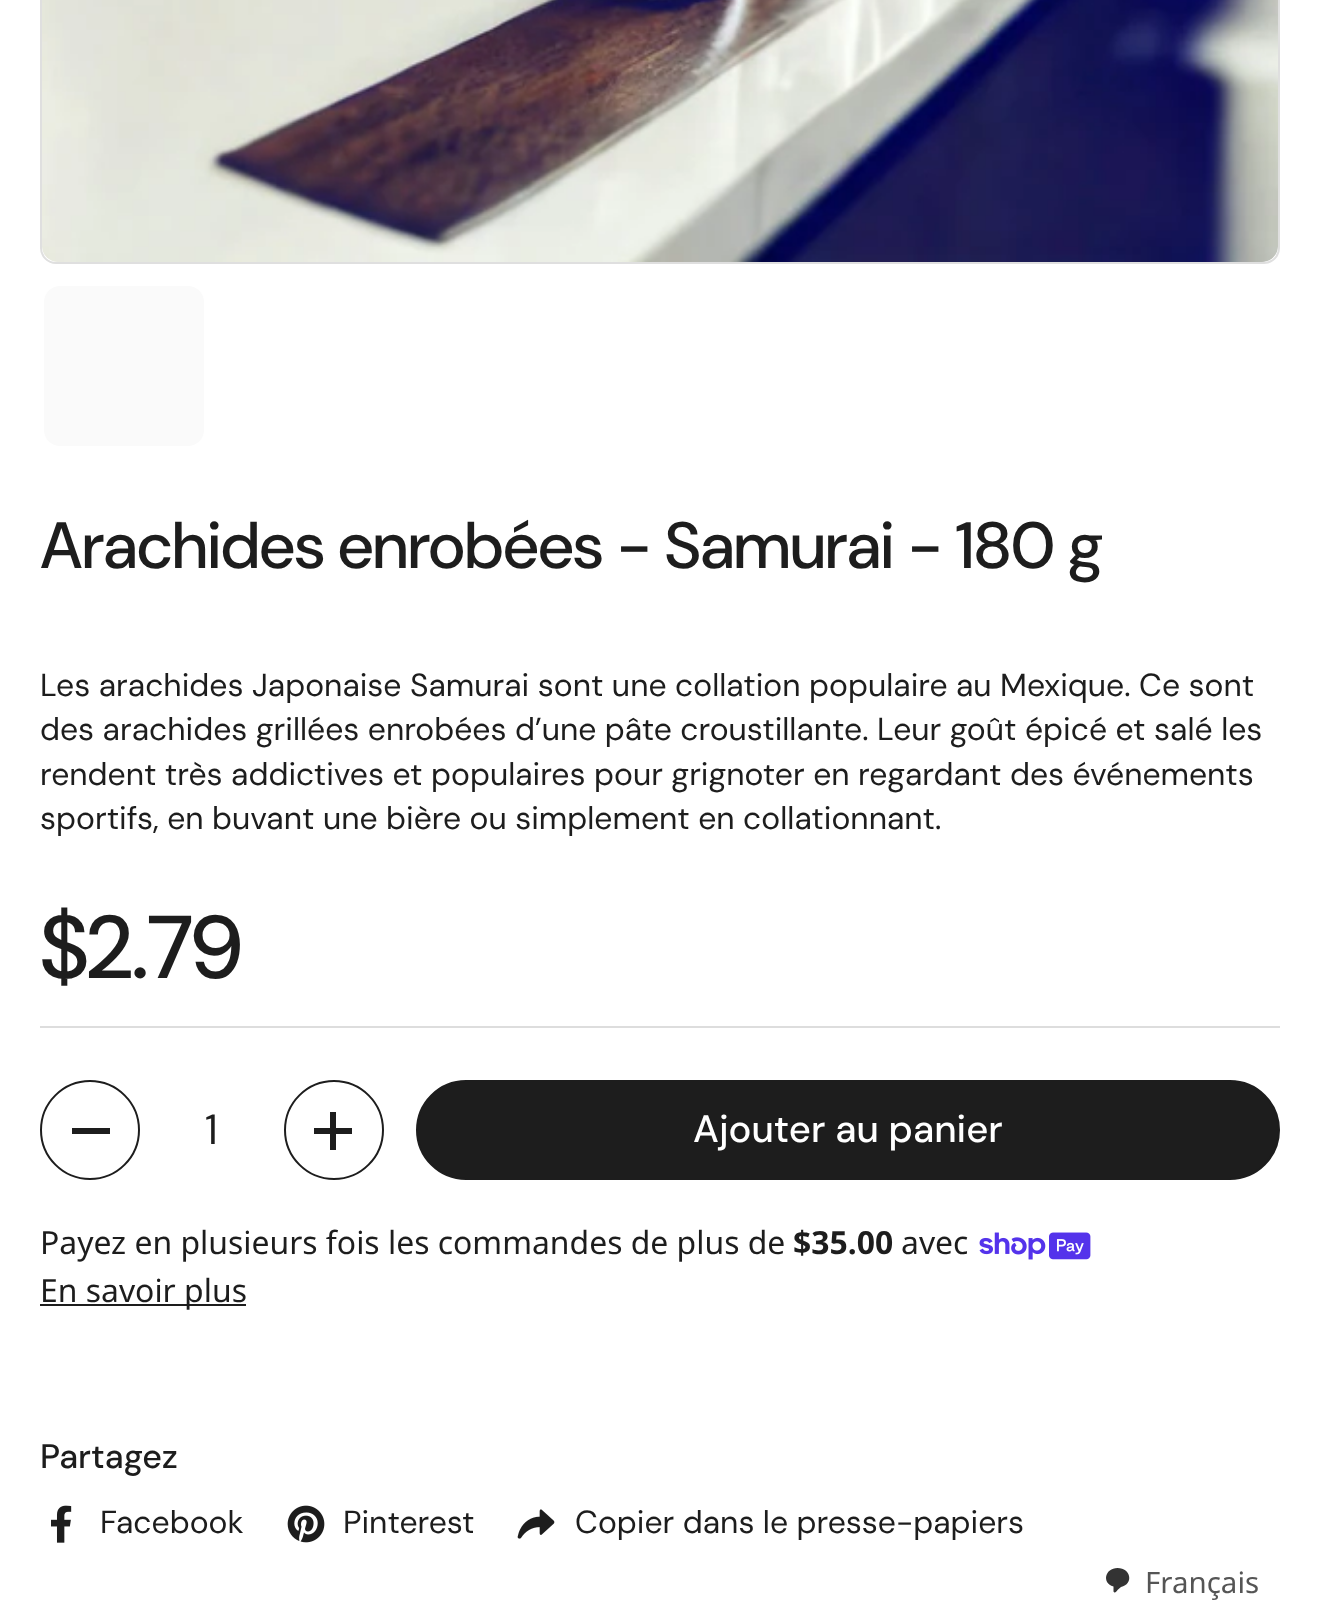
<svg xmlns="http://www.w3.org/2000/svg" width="1320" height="1602">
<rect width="100%" height="100%" fill="#fff"/>
<rect x="41" y="-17" width="1238" height="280" rx="15" fill="none" stroke="#dfdfdf" stroke-width="2"/>
<image x="42" y="0" width="1236" height="262" href="media/1.png"/>
<rect x="44" y="286" width="160" height="160" rx="16" fill="#fafafa"/>
<text x="40" y="568" style="font-family:DM Sans;font-size:65.3px;font-weight:500;letter-spacing:-1.3px;fill:#1d1d1d">Arachides enrobées - Samurai - 180 g</text>
<text x="40" y="696" style="font-family:DM Sans;font-size:31.9px;fill:#1d1d1d">Les arachides Japonaise Samurai sont une collation populaire au Mexique. Ce sont</text>
<text x="40" y="740" style="font-family:DM Sans;font-size:31.9px;fill:#1d1d1d">des arachides grillées enrobées d’une pâte croustillante. Leur goût épicé et salé les</text>
<text x="40" y="785" style="font-family:DM Sans;font-size:31.9px;fill:#1d1d1d">rendent très addictives et populaires pour grignoter en regardant des événements</text>
<text x="40" y="829" style="font-family:DM Sans;font-size:31.9px;fill:#1d1d1d">sportifs, en buvant une bière ou simplement en collationnant.</text>
<text x="40" y="978" style="font-family:'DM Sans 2';font-size:89px;font-weight:500;letter-spacing:-1.75px;fill:#1d1d1d">$2.79</text>
<rect x="40" y="1026" width="1240" height="2" fill="#ddd"/>
<circle cx="90" cy="1130" r="49" fill="none" stroke="#1d1d1d" stroke-width="2"/>
<rect x="72" y="1128" width="38" height="6" fill="#1d1d1d"/>
<text x="205" y="1144" style="font-family:'DM Sans 2';font-size:42px;fill:#1d1d1d">1</text>
<circle cx="334" cy="1130" r="49" fill="none" stroke="#1d1d1d" stroke-width="2"/>
<rect x="330" y="1112" width="6" height="38" fill="#1d1d1d"/>
<rect x="314" y="1128" width="38" height="6" fill="#1d1d1d"/>
<rect x="417" y="1081" width="862" height="98" rx="49" fill="#1d1d1d" stroke="#1d1d1d" stroke-width="2"/>
<text x="693" y="1142" style="font-family:'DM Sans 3';font-size:38.25px;font-weight:500;fill:#fff">Ajouter au panier</text>
<text x="40" y="1254" style="font-family:Noto Sans;font-size:31.9px;fill:#1d1d1d">Payez en plusieurs fois les commandes de plus de</text>
<text x="793" y="1254" style="font-family:Noto Sans;font-size:31.9px;font-weight:bold;fill:#1d1d1d">$35.00</text>
<text x="901" y="1254" style="font-family:Noto Sans;font-size:31.9px;fill:#1d1d1d">avec</text>
<image x="979" y="1232" width="112" height="28" href="media/2.png"/>
<rect x="40" y="1304" width="206" height="2" fill="#1d1d1d"/>
<text x="40" y="1302" style="font-family:Noto Sans;font-size:31.9px;fill:#1d1d1d">En savoir plus</text>
<text x="40" y="1468" style="font-family:'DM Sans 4';font-size:34px;font-weight:500;fill:#1d1d1d">Partagez</text>
<image x="51" y="1505" width="21" height="38" href="media/3.png"/>
<text x="100" y="1533" style="font-family:DM Sans;font-size:31.9px;fill:#1d1d1d">Facebook</text>
<image x="287" y="1505" width="38" height="38" href="media/4.png"/>
<text x="343" y="1533" style="font-family:DM Sans;font-size:31.9px;fill:#1d1d1d">Pinterest</text>
<image x="517" y="1509" width="38" height="30" href="media/5.png"/>
<text x="575" y="1533" style="font-family:DM Sans;font-size:31.9px;fill:#1d1d1d">Copier dans le presse-papiers</text>
<path d="M1117.5 1568c13.5 0 16.5 16 3.5 19l-3.5 3c-.5 1-3 4-4 1.5v-5c-12-3.5-8.5-18.5 4-18.5z" fill="#333" fill-rule="evenodd"/>
<text x="1145" y="1593" style="font-family:Noto Sans;font-size:29.5px;fill:#555">Français</text>
</svg>
